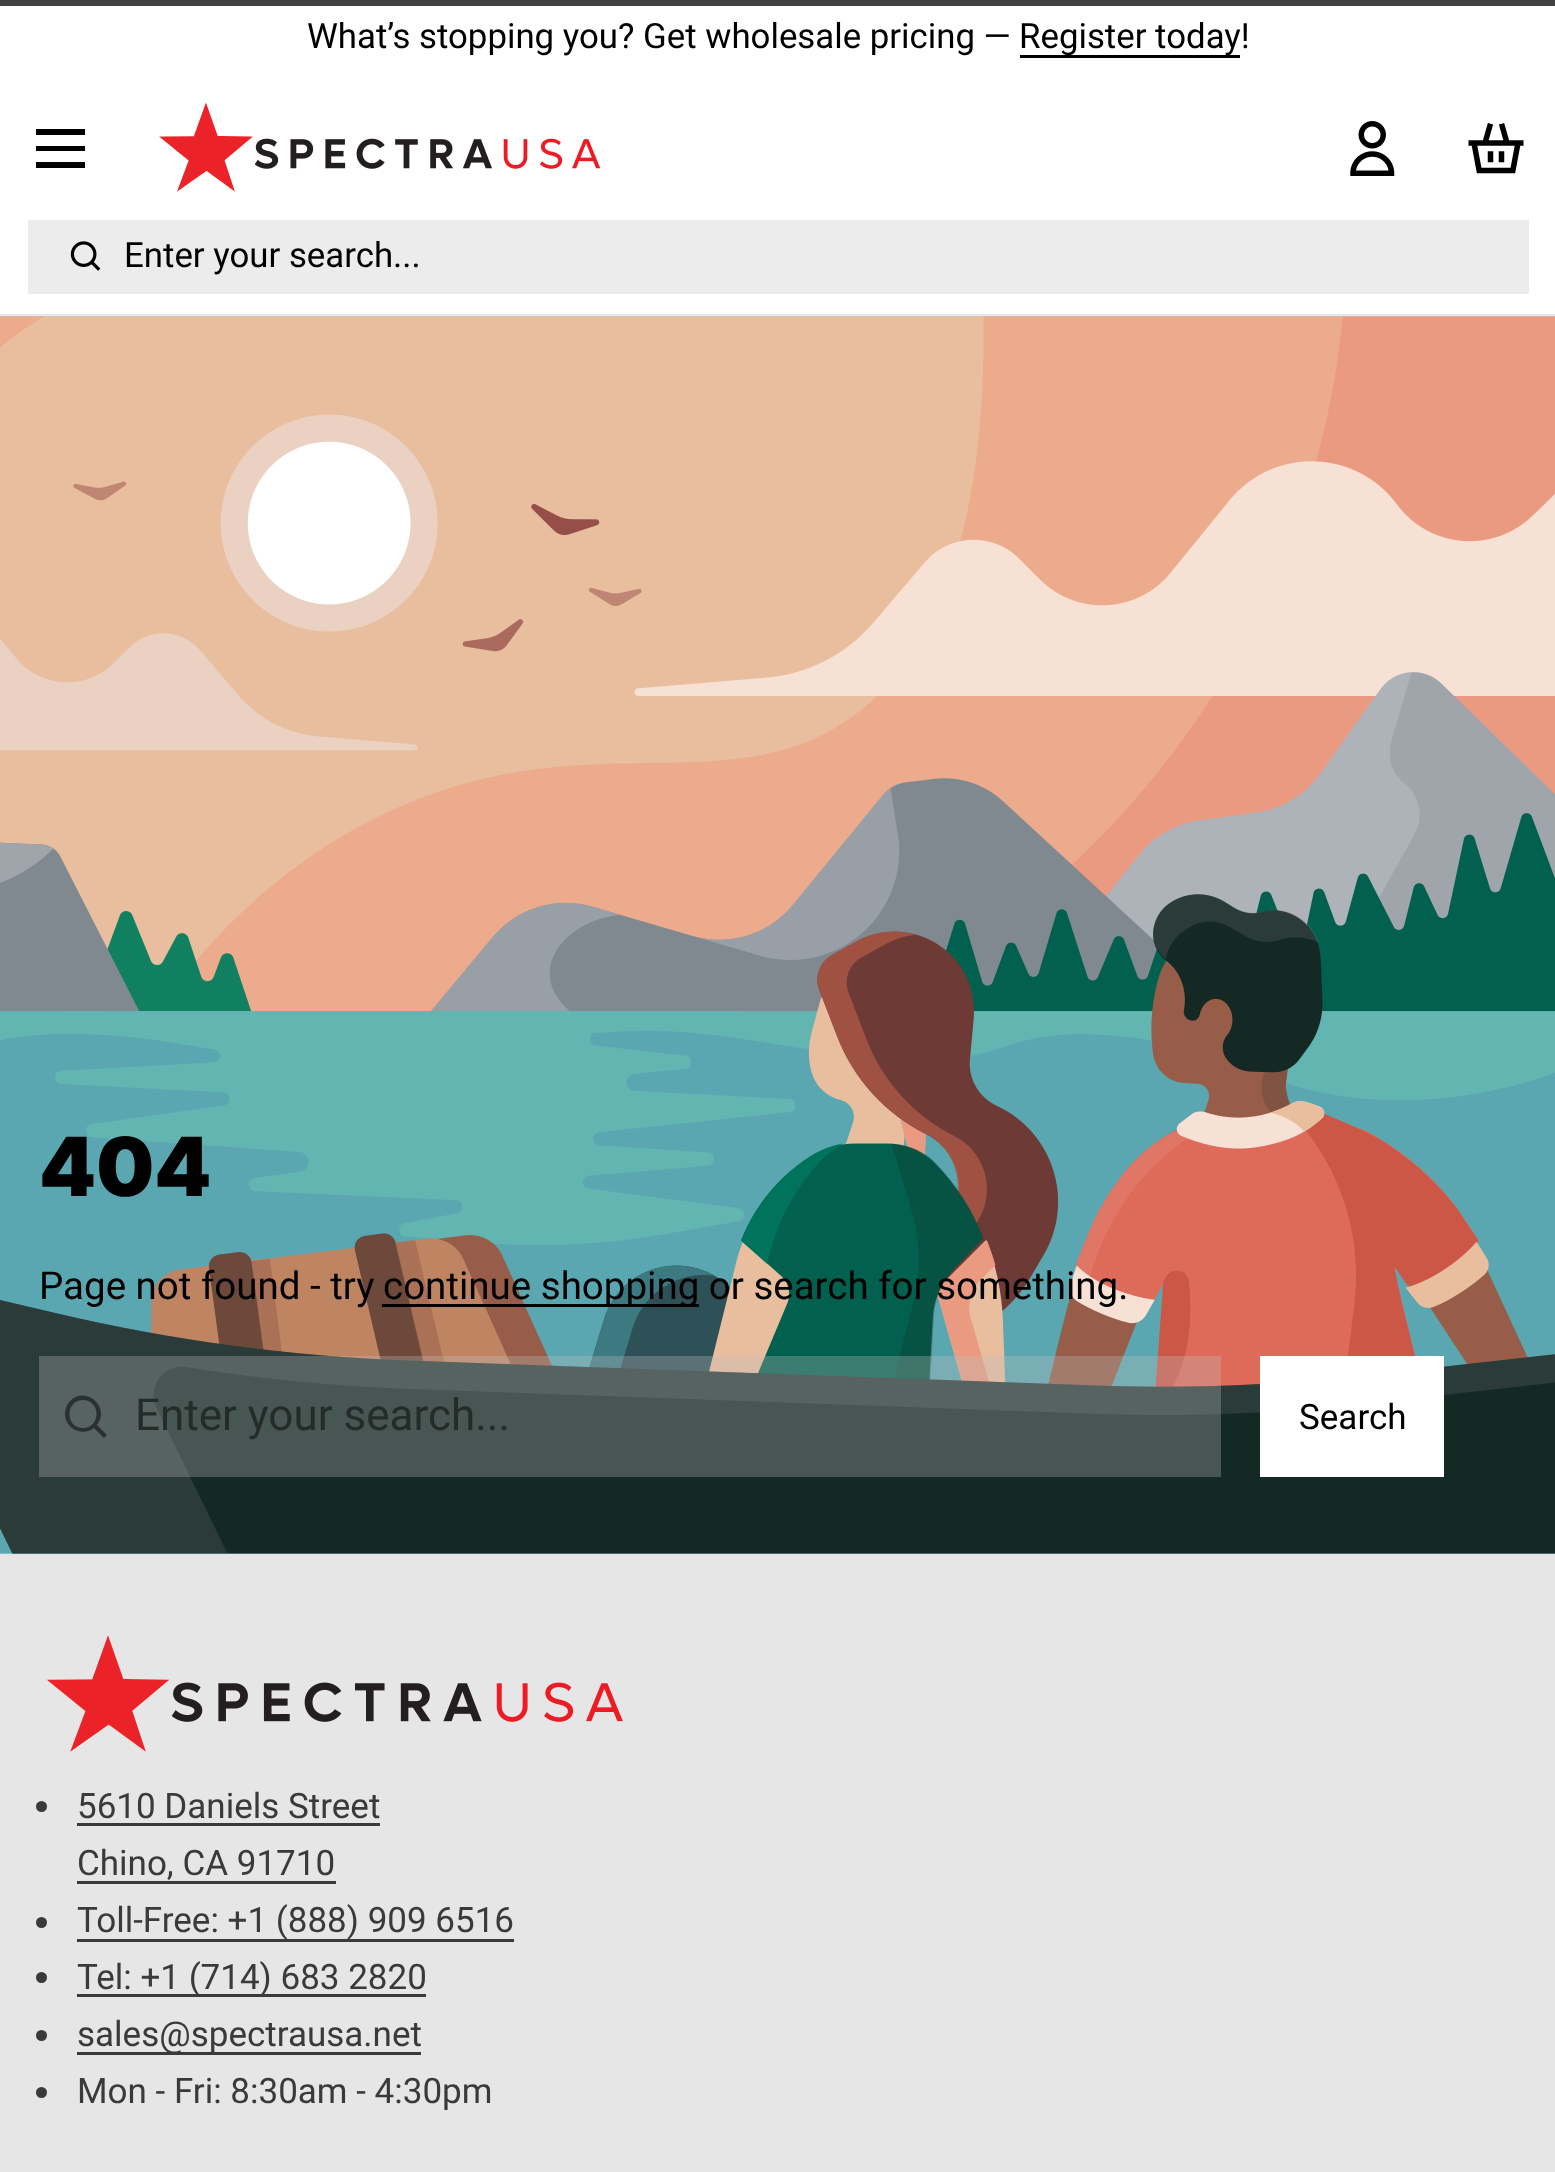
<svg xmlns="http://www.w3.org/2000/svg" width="1555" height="2172">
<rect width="100%" height="100%" fill="#fff"/>
<rect width="1555" height="6" fill="#404040"/>
<text x="307" y="48" style="font-family:Roboto;font-size:34.8px;fill:#000">What’s stopping you? Get wholesale pricing —</text>
<rect x="1020" y="55" width="220" height="3" fill="#010101"/>
<text x="1019" y="48" style="font-family:Roboto;font-size:34.8px;fill:#000">Register today!</text>
<image x="0" y="316" width="1555" height="1238" href="media/5.png"/>
<rect y="314" width="1555" height="3" fill="#b3b3b34d"/>
<rect x="36" y="129" width="49" height="6" fill="#000"/>
<rect x="36" y="146" width="49" height="5" fill="#000"/>
<rect x="36" y="162" width="49" height="6" fill="#000"/>
<image x="159" y="102" width="442" height="90" href="media/1.png"/>
<image x="1350" y="121" width="45" height="55" href="media/2.png"/>
<image x="1468" y="123" width="56" height="51" href="media/3.png"/>
<rect x="28" y="220" width="1501" height="74" fill="#ececec"/>
<image x="70" y="241" width="31" height="30" href="media/4.png"/>
<text x="124" y="267" style="font-family:Roboto;font-size:34.8px;fill:#000">Enter your search...</text>
<text x="39" y="1196" style="font-family:Inter;font-size:81.5px;font-weight:900;fill:#000">404</text>
<text x="39" y="1299" style="font-family:Roboto;font-size:38.5px;fill:#000">Page not found - try</text>
<rect x="382" y="1304" width="317" height="3" fill="#000"/>
<text x="383" y="1299" style="font-family:Roboto;font-size:38.5px;fill:#000">continue shopping or search for something.</text>
<rect x="39" y="1356" width="1182" height="121" fill="#bfbfbf4d"/>
<path d="M83 1400c-18 0-18 28 0 28c18 0 18-28 0-28zm-18 14c0-5 2-10 5-13c16-16 41 7 27 24l10 10l-3 3l-10-10c-11 9-29 1-29-14z" fill="#2b3131" fill-rule="evenodd"/>
<text x="135" y="1430" style="font-family:Roboto;font-size:44px;fill:#242c2a">Enter your search...</text>
<rect x="1260" y="1356" width="184" height="121" fill="#fff"/>
<text x="1299" y="1429" style="font-family:Roboto;font-size:35px;fill:#000">Search</text>
<rect y="1554" width="1555" height="618" fill="#e6e6e6"/>
<image x="47" y="1635" width="576" height="117" href="media/6.png"/>
<circle cx="41.5" cy="1806.5" r="5.5" fill="#3a3a3a"/>
<text x="77" y="1818" style="font-family:Roboto;font-size:35px;fill:#3a3a3a">5610 Daniels Street</text>
<rect x="77" y="1823" width="303" height="3" fill="#3a3a3a"/>
<text x="77" y="1875" style="font-family:Roboto;font-size:35px;fill:#3a3a3a">Chino, CA 91710</text>
<rect x="77" y="1881" width="259" height="3" fill="#3a3a3a"/>
<circle cx="41.5" cy="1922.5" r="5.5" fill="#3a3a3a"/>
<rect x="77" y="1939" width="437" height="3" fill="#3a3a3a"/>
<text x="77" y="1932" style="font-family:Roboto;font-size:35px;fill:#3a3a3a">Toll-Free: +1 (888) 909 6516</text>
<circle cx="41.5" cy="1977.5" r="5.5" fill="#3a3a3a"/>
<rect x="77" y="1994" width="349" height="3" fill="#3a3a3a"/>
<text x="77" y="1989" style="font-family:Roboto;font-size:35px;fill:#3a3a3a">Tel: +1 (714) 683 2820</text>
<circle cx="41.5" cy="2035.5" r="5.5" fill="#3a3a3a"/>
<rect x="77" y="2052" width="344" height="3" fill="#3a3a3a"/>
<text x="77" y="2046" style="font-family:Roboto;font-size:35px;fill:#3a3a3a">sales@spectrausa.net</text>
<circle cx="41.5" cy="2092.5" r="5.5" fill="#3a3a3a"/>
<text x="77" y="2103" style="font-family:Roboto;font-size:35px;fill:#3a3a3a">Mon - Fri: 8:30am - 4:30pm</text>
</svg>
